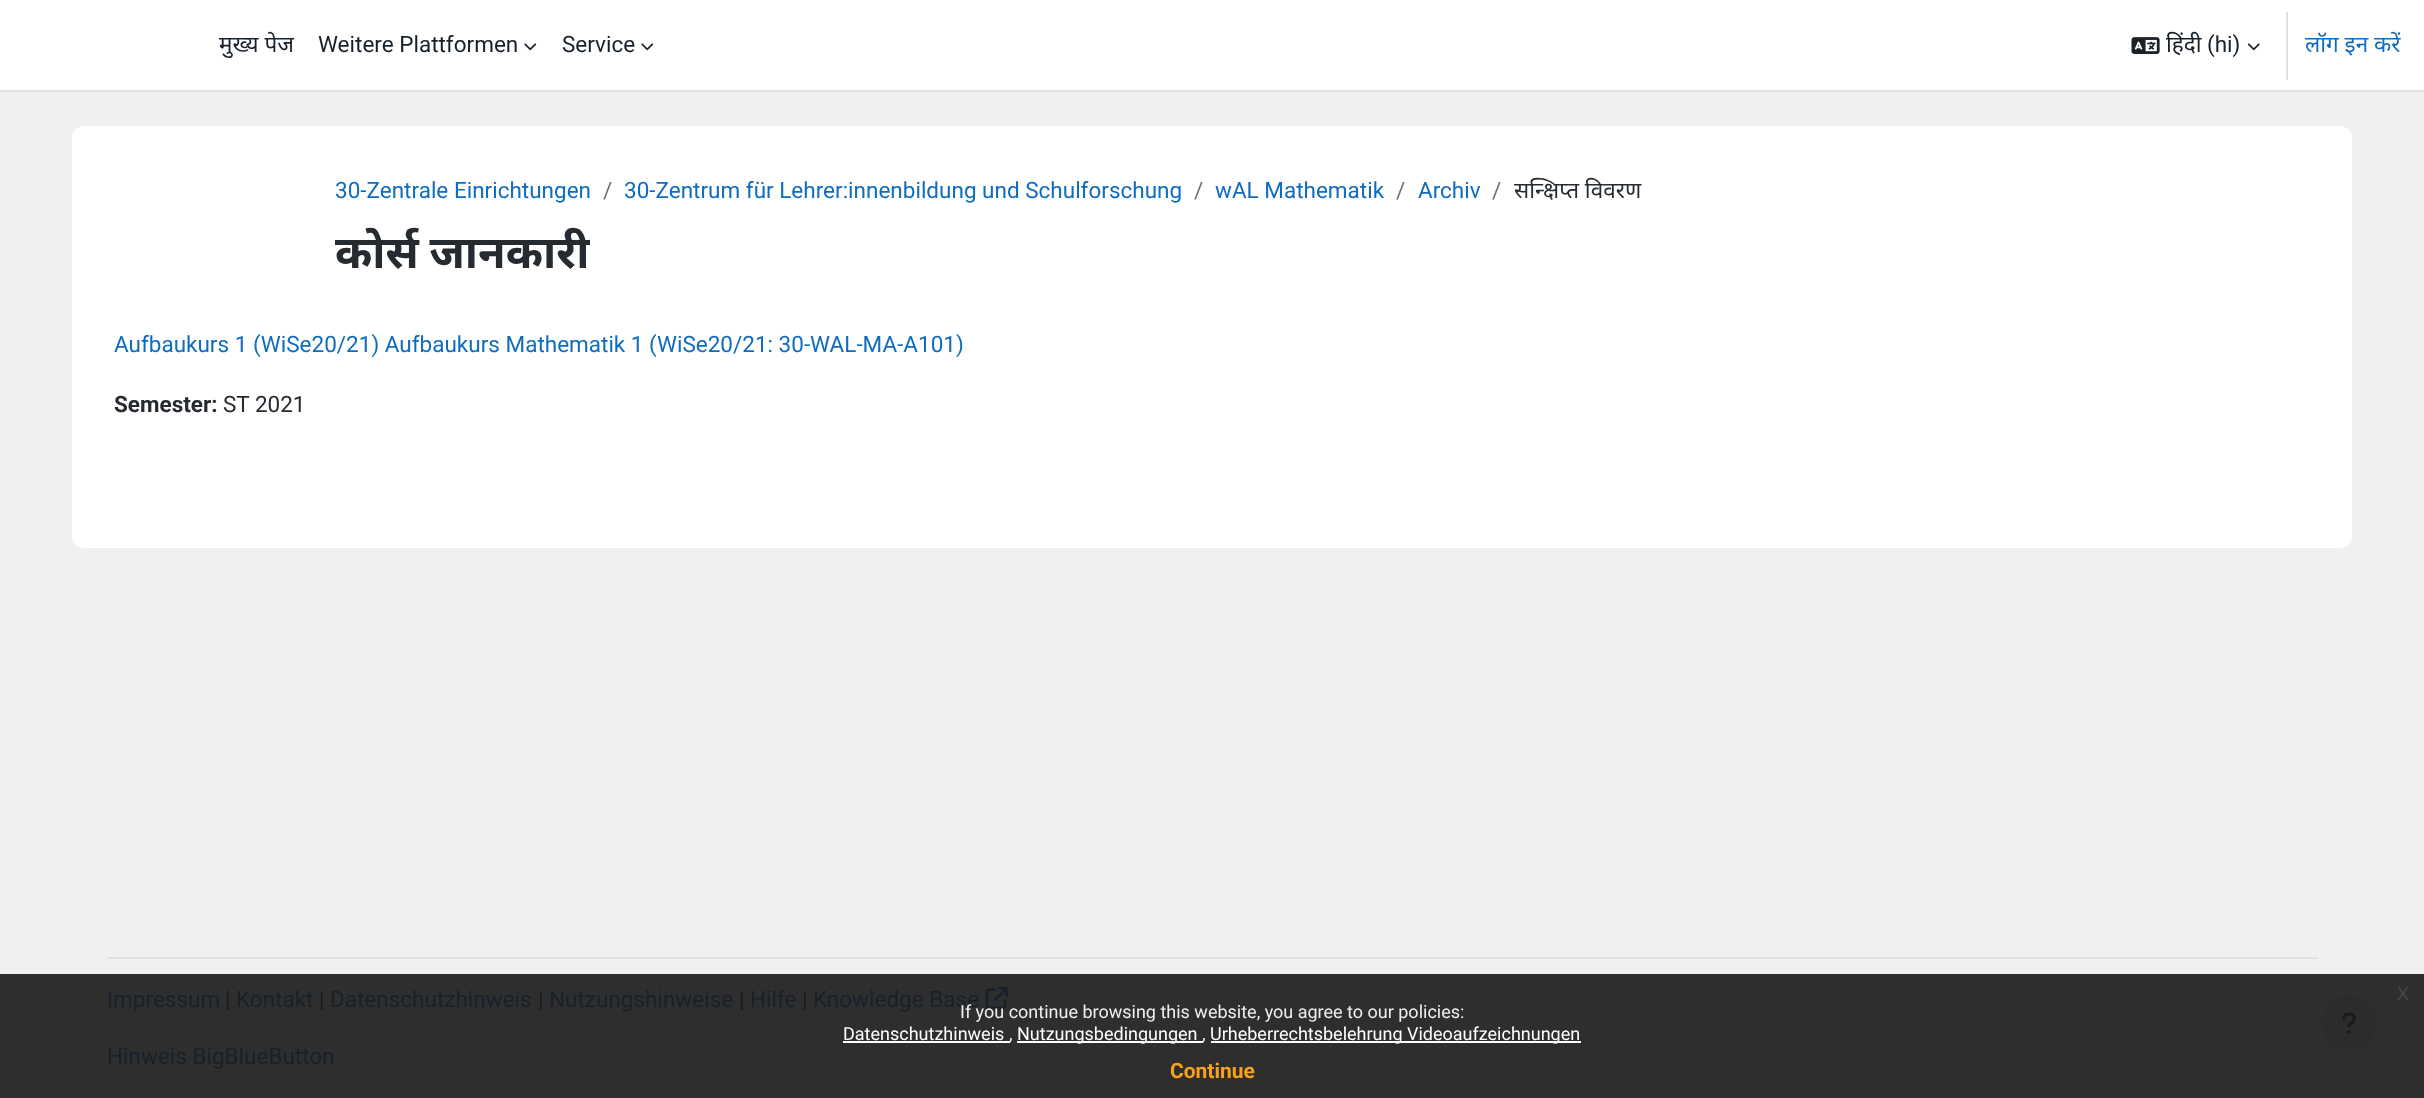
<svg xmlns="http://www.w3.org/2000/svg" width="2424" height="1098">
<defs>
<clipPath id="clip1"><rect x="335" y="221" width="255" height="66"/></clipPath>
</defs>
<rect width="100%" height="100%" fill="#f0f0f0"/>
<rect y="974" width="2424" height="124" fill="#2e2e2e"/>
<rect width="2424" height="90" fill="#fff"/>
<rect y="90" width="2424" height="2" fill="#dee2e6"/>
<text x="219" y="52" style="font-family:Noto Sans;font-size:22.5px;fill:#18212a">मुख्य पेज</text>
<text x="318" y="52" style="font-family:Roboto;font-size:22.5px;fill:#18212a">Weitere Plattformen</text>
<image x="524" y="43" width="13" height="8" href="media/1.png"/>
<text x="562" y="52" style="font-family:Roboto;font-size:22.5px;fill:#18212a">Service</text>
<image x="641" y="43" width="13" height="8" href="media/1.png"/>
<image x="2131" y="37" width="29" height="17" href="media/2.png"/>
<text x="2166" y="52" style="font-family:Noto Sans;font-size:22.5px;fill:#18212a">हिंदी </text>
<text x="2207" y="52" style="font-family:Roboto;font-size:22.5px;fill:#18212a">(hi)</text>
<image x="2247" y="43" width="13" height="8" href="media/3.png"/>
<rect x="2286" y="12" width="2" height="68" fill="#dee2e6"/>
<text x="2305" y="52" style="font-family:Noto Sans;font-size:22.5px;fill:#0f6cbf">लॉग इन करें</text>
<rect x="72" y="126" width="2280" height="422" rx="12" fill="#fff"/>
<text x="335" y="198" style="font-family:Roboto;font-size:22.5px;fill:#0f6cbf">30-Zentrale Einrichtungen</text>
<text x="603" y="198" style="font-family:Roboto;font-size:22.5px;fill:#6a737b">/</text>
<text x="624" y="198" style="font-family:Roboto;font-size:22.5px;fill:#0f6cbf">30-Zentrum für Lehrer:innenbildung und Schulforschung</text>
<text x="1194" y="198" style="font-family:Roboto;font-size:22.5px;fill:#6a737b">/</text>
<text x="1215" y="198" style="font-family:Roboto;font-size:22.5px;fill:#0f6cbf">wAL Mathematik</text>
<text x="1396" y="198" style="font-family:Roboto;font-size:22.5px;fill:#6a737b">/</text>
<text x="1418" y="198" style="font-family:Roboto;font-size:22.5px;fill:#0f6cbf">Archiv</text>
<text x="1492" y="198" style="font-family:Roboto;font-size:22.5px;fill:#6a737b">/</text>
<text x="1514" y="198" style="font-family:Noto Sans;font-size:22.5px;fill:#262a31">सन्क्षिप्त विवरण</text>
<g clip-path="url(#clip1)">
<text x="335" y="268" word-spacing="-1" style="font-family:Noto Sans;font-size:45px;font-weight:bold;fill:#262a31">कोर्स जानकारी</text>
</g>
<text x="114" y="352" style="font-family:Roboto;font-size:22.5px;fill:#0f6cbf">Aufbaukurs 1 (WiSe20/21) Aufbaukurs Mathematik 1 (WiSe20/21: 30-WAL-MA-A101)</text>
<text x="114" y="412" style="font-family:Roboto;font-size:22.5px;font-weight:bold;fill:#262a31">Semester:</text>
<text x="223" y="412" style="font-family:Roboto;font-size:22.5px;fill:#262a31">ST 2021</text>
<rect x="107" y="957" width="2211" height="2" fill="#dee2e6"/>
<text x="107" y="1007" style="font-family:Roboto;font-size:22.5px;fill:#18212a">Impressum</text>
<text x="225" y="1007" style="font-family:Roboto;font-size:22.5px;fill:#1a1b1b">|</text>
<text x="236" y="1007" style="font-family:Roboto;font-size:22.5px;fill:#18212a">Kontakt</text>
<text x="319" y="1007" style="font-family:Roboto;font-size:22.5px;fill:#1a1b1b">|</text>
<text x="330" y="1007" style="font-family:Roboto;font-size:22.5px;fill:#18212a">Datenschutzhinweis</text>
<text x="538" y="1007" style="font-family:Roboto;font-size:22.5px;fill:#1a1b1b">|</text>
<text x="549" y="1007" style="font-family:Roboto;font-size:22.5px;fill:#18212a">Nutzungshinweise</text>
<text x="739" y="1007" style="font-family:Roboto;font-size:22.5px;fill:#1a1b1b">|</text>
<text x="750" y="1007" style="font-family:Roboto;font-size:22.5px;fill:#18212a">Hilfe</text>
<text x="802" y="1007" style="font-family:Roboto;font-size:22.5px;fill:#1a1b1b">|</text>
<text x="813" y="1007" style="font-family:Roboto;font-size:22.5px;fill:#18212a">Knowledge Base</text>
<image x="985" y="986" width="23" height="24" href="media/4.png"/>
<text x="107" y="1064" style="font-family:Roboto;font-size:22.5px;fill:#18212a">Hinweis BigBlueButton</text>
<circle cx="2349" cy="1023" r="27" fill="#2b2c2c"/>
<image x="2342" y="1012" width="14" height="22" href="media/5.png"/>
<text x="2397" y="1000" style="font-family:Liberation Sans;font-size:24px;fill:#464646">x</text>
<text x="960" y="1018" style="font-family:Roboto;font-size:18px;fill:#efefef">If you continue browsing this website, you agree to our policies:</text>
<text x="843" y="1040" style="font-family:Roboto;font-size:18px;fill:#fff">Datenschutzhinweis</text>
<rect x="843" y="1041" width="167" height="2" fill="#fff"/>
<text x="1009" y="1040" style="font-family:Roboto;font-size:18px;fill:#efefef">,</text>
<rect x="1017" y="1041" width="186" height="2" fill="#fff"/>
<text x="1017" y="1040" style="font-family:Roboto;font-size:18px;fill:#fff">Nutzungsbedingungen</text>
<text x="1202" y="1040" style="font-family:Roboto;font-size:18px;fill:#efefef">,</text>
<rect x="1211" y="1041" width="370" height="2" fill="#fff"/>
<text x="1210" y="1040" style="font-family:Roboto;font-size:18px;fill:#fff">Urheberrechtsbelehrung Videoaufzeichnungen</text>
<text x="1170" y="1078" style="font-family:Roboto;font-size:21px;font-weight:bold;fill:#f6a21d">Continue</text>
</svg>
